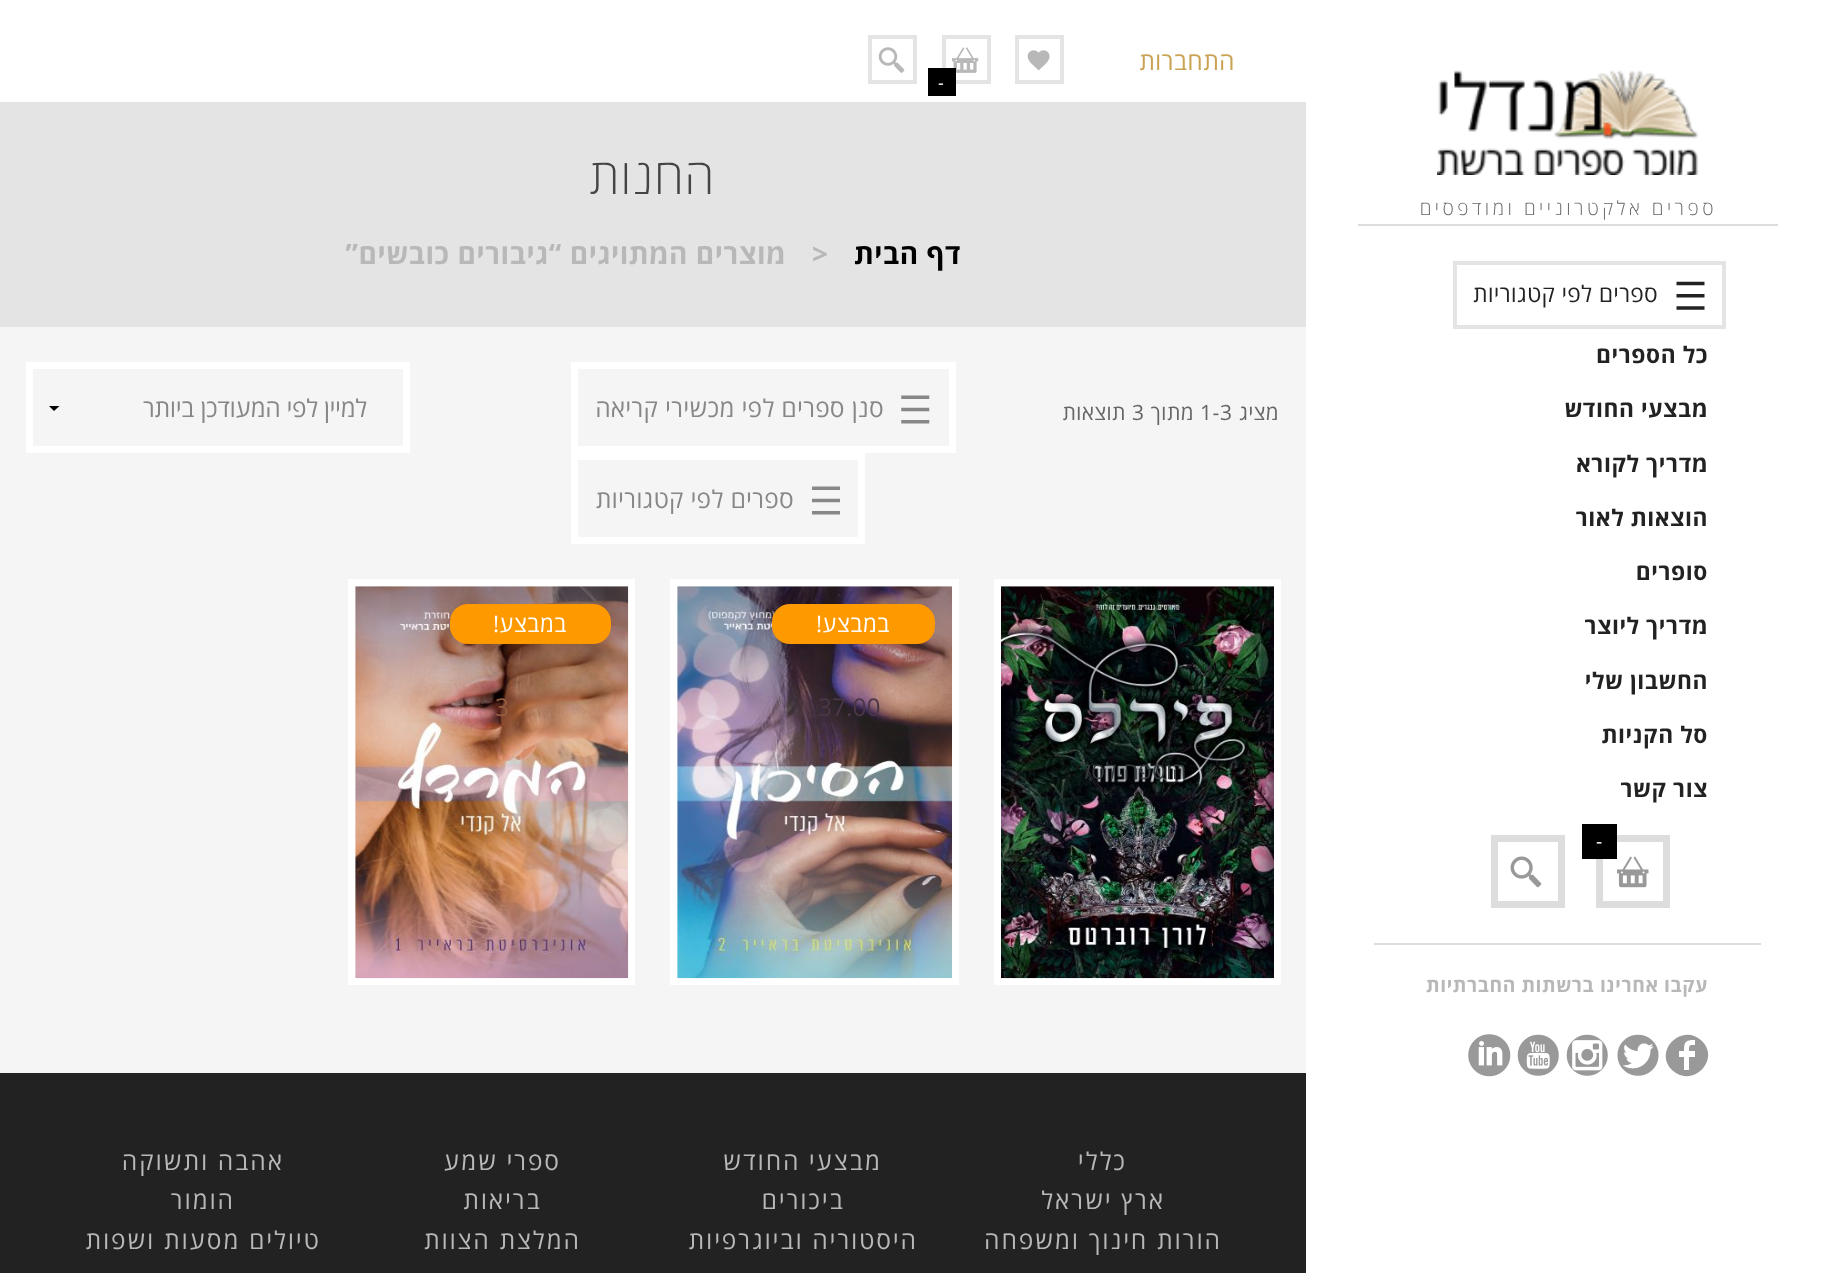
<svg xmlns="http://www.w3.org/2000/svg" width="1830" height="1273">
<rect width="100%" height="100%" fill="#f5f5f5"/>
<rect x="1306" width="524" height="1273" fill="#fff"/>
<rect x="1358" y="224" width="420" height="2" fill="#ddd"/>
<image x="1437" y="70" width="262" height="105" href="media/1.png"/>
<text x="1717" y="215" style="font-family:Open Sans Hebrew;font-size:19.25px;font-weight:300;letter-spacing:3.5px;direction:rtl;fill:#666">ספרים אלקטרוניים ומודפסים</text>
<rect x="1455" y="263" width="269" height="64" fill="none" stroke="#e4e4e4" stroke-width="4"/>
<image x="1676" y="281" width="29" height="29" href="media/2.png"/>
<text x="1658" y="302" style="font-family:Open Sans Hebrew;font-size:22.75px;letter-spacing:0.6px;direction:rtl;fill:#222">ספרים לפי קטגוריות</text>
<text x="1708" y="363" style="font-family:Open Sans Hebrew;font-size:22.75px;font-weight:bold;letter-spacing:0.6px;direction:rtl;fill:#222">כל הספרים</text>
<text x="1708" y="417" style="font-family:Open Sans Hebrew;font-size:22.75px;font-weight:bold;letter-spacing:0.6px;direction:rtl;fill:#222">מבצעי החודש</text>
<text x="1708" y="472" style="font-family:Open Sans Hebrew;font-size:22.75px;font-weight:bold;letter-spacing:0.6px;direction:rtl;fill:#222">מדריך לקורא</text>
<text x="1708" y="526" style="font-family:Open Sans Hebrew;font-size:22.75px;font-weight:bold;letter-spacing:0.6px;direction:rtl;fill:#222">הוצאות לאור</text>
<text x="1708" y="580" style="font-family:Open Sans Hebrew;font-size:22.75px;font-weight:bold;letter-spacing:0.6px;direction:rtl;fill:#222">סופרים</text>
<text x="1708" y="634" style="font-family:Open Sans Hebrew;font-size:22.75px;font-weight:bold;letter-spacing:0.6px;direction:rtl;fill:#222">מדריך ליוצר</text>
<text x="1708" y="689" style="font-family:Open Sans Hebrew;font-size:22.75px;font-weight:bold;letter-spacing:0.6px;direction:rtl;fill:#222">החשבון שלי</text>
<text x="1708" y="743" style="font-family:Open Sans Hebrew;font-size:22.75px;font-weight:bold;letter-spacing:0.6px;direction:rtl;fill:#222">סל הקניות</text>
<text x="1708" y="797" style="font-family:Open Sans Hebrew;font-size:22.75px;font-weight:bold;letter-spacing:0.6px;direction:rtl;fill:#222">צור קשר</text>
<rect x="1374" y="943" width="387" height="2" fill="#ddd"/>
<rect x="1599.5" y="838.5" width="67" height="66" fill="none" stroke="#ddd" stroke-width="7"/>
<rect x="1582" y="824" width="35" height="35" fill="#000"/>
<text x="1596" y="848" style="font-family:Open Sans Hebrew;font-size:19.25px;letter-spacing:0.6px;fill:#fff">-</text>
<image x="1617" y="856" width="32" height="32" href="media/3.png"/>
<rect x="1494.5" y="838.5" width="67" height="66" fill="none" stroke="#ddd" stroke-width="7"/>
<image x="1510" y="856" width="32" height="32" href="media/4.png"/>
<text x="1708" y="992" style="font-family:Open Sans Hebrew;font-size:19.25px;font-weight:bold;letter-spacing:0.6px;direction:rtl;fill:#b8b8b8">עקבו אחרינו ברשתות החברתיות</text>
<path d="M1702 1041c-20-19-49 10-30 29c20 19 49-10 30-29zm-7 4c-6 0-6 0-6 6h6v6h-6v13h-5v-13h-5v-6h5c0-9 1-11 11-11z" fill="#999"/>
<image x="1617" y="1034" width="42" height="42" href="media/5.png"/>
<image x="1566" y="1034" width="42" height="42" href="media/6.png"/>
<image x="1517" y="1034" width="42" height="42" href="media/7.png"/>
<image x="1468" y="1034" width="43" height="43" href="media/8.png"/>
<rect width="1306" height="102" fill="#fff"/>
<text x="1235" y="70" style="font-family:Open Sans Hebrew;font-size:24.5px;letter-spacing:0.6px;direction:rtl;fill:#c9a253">התחברות</text>
<rect x="1017" y="37" width="45" height="45" fill="none" stroke="#e4e4e4" stroke-width="4"/>
<image x="1027" y="50" width="23" height="21" href="media/9.png"/>
<rect x="944" y="37" width="45" height="45" fill="none" stroke="#e4e4e4" stroke-width="4"/>
<image x="952" y="47" width="27" height="26" href="media/10.png"/>
<rect x="928" y="68" width="28" height="28" fill="#000"/>
<text x="938" y="89" style="font-family:Open Sans Hebrew;font-size:18px;letter-spacing:0.6px;fill:#fff">-</text>
<rect x="870" y="37" width="45" height="45" fill="none" stroke="#e4e4e4" stroke-width="4"/>
<image x="878" y="47" width="27" height="26" href="media/11.png"/>
<rect y="102" width="1306" height="225" fill="#e4e4e4"/>
<text x="715" y="194" style="font-family:Open Sans Hebrew;font-size:49px;font-weight:300;letter-spacing:0.6px;direction:rtl;fill:#444">החנות</text>
<text x="961" y="264" style="font-family:Open Sans Hebrew;font-size:28px;font-weight:bold;letter-spacing:0.6px;direction:rtl;fill:#000">דף הבית</text>
<text x="812" y="264" style="font-family:Open Sans Hebrew;font-size:28px;font-weight:bold;letter-spacing:0.6px;fill:#b8b8b8">&gt;</text>
<text x="786" y="264" style="font-family:Open Sans Hebrew;font-size:28px;font-weight:bold;letter-spacing:0.6px;direction:rtl;fill:#b8b8b8">מוצרים המתויגים “גיבורים כובשים”</text>
<text x="1279" y="420" style="font-family:Open Sans Hebrew;font-size:21px;letter-spacing:0.6px;direction:rtl;fill:#666">מציג</text>
<text x="1200" y="420" style="font-family:Open Sans Hebrew;font-size:21px;letter-spacing:0.6px;fill:#666">1-3</text>
<text x="1194" y="420" style="font-family:Open Sans Hebrew;font-size:21px;letter-spacing:0.6px;direction:rtl;fill:#666">מתוך</text>
<text x="1132" y="420" style="font-family:Open Sans Hebrew;font-size:21px;letter-spacing:0.6px;fill:#666">3</text>
<text x="1126" y="420" style="font-family:Open Sans Hebrew;font-size:21px;letter-spacing:0.6px;direction:rtl;fill:#666">תוצאות</text>
<rect x="574.5" y="365.5" width="378" height="84" fill="none" stroke="#fff" stroke-width="7"/>
<image x="901" y="395" width="29" height="29" href="media/12.png"/>
<text x="884" y="417" style="font-family:Open Sans Hebrew;font-size:24.5px;letter-spacing:0.6px;direction:rtl;fill:#878787">סנן ספרים לפי מכשירי קריאה</text>
<rect x="574.5" y="456.5" width="287" height="84" fill="none" stroke="#fff" stroke-width="7"/>
<image x="812" y="486" width="28" height="29" href="media/13.png"/>
<text x="794" y="508" style="font-family:Open Sans Hebrew;font-size:24.5px;letter-spacing:0.6px;direction:rtl;fill:#878787">ספרים לפי קטגוריות</text>
<path d="M59.5 406l-5.5 5l-5-5z" fill="#000"/>
<rect x="29.5" y="365.5" width="377" height="84" fill="none" stroke="#fff" stroke-width="7"/>
<text x="367" y="417" style="font-family:Open Sans Hebrew;font-size:24.5px;direction:rtl;fill:#878787">למיין לפי המעודכן ביותר</text>
<rect x="673.5" y="582.5" width="282" height="399" fill="none" stroke="#fff" stroke-width="7"/>
<image x="677" y="586" width="275" height="393" href="media/14.png"/>
<rect x="772" y="604" width="163" height="40" rx="18" fill="#f90"/>
<text x="890" y="632" style="font-family:Open Sans Hebrew;font-size:22.75px;letter-spacing:0.6px;direction:rtl;fill:#fff">במבצע!</text>
<text x="818" y="716" style="font-family:Open Sans Hebrew;font-size:24.5px;fill:#4a3647">37.00</text>
<rect x="351.5" y="582.5" width="280" height="399" fill="none" stroke="#fff" stroke-width="7"/>
<image x="355" y="586" width="274" height="393" href="media/15.png"/>
<rect x="450" y="604" width="161" height="40" rx="18" fill="#f90"/>
<text x="567" y="632" style="font-family:Open Sans Hebrew;font-size:22.75px;letter-spacing:0.6px;direction:rtl;fill:#fff">במבצע!</text>
<text x="495" y="716" style="font-family:Open Sans Hebrew;font-size:24.5px;fill:#945c41">3</text>
<rect x="997.5" y="582.5" width="280" height="399" fill="none" stroke="#fff" stroke-width="7"/>
<image x="1001" y="586" width="273" height="393" href="media/16.png"/>
<text x="1187" y="779" style="font-family:Open Sans Hebrew;font-size:22.75px;letter-spacing:0.75px;direction:rtl;fill:#353a3c">הוספה לסל</text>
<rect y="1073" width="1306" height="200" fill="#222"/>
<text x="1127" y="1170" style="font-family:Open Sans Hebrew;font-size:24.5px;letter-spacing:2.25px;direction:rtl;fill:#b8b8b8">כללי</text>
<text x="882" y="1170" style="font-family:Open Sans Hebrew;font-size:24.5px;letter-spacing:2.25px;direction:rtl;fill:#b8b8b8">מבצעי החודש</text>
<text x="561" y="1170" style="font-family:Open Sans Hebrew;font-size:24.5px;letter-spacing:2.25px;direction:rtl;fill:#b8b8b8">ספרי שמע</text>
<text x="284" y="1170" style="font-family:Open Sans Hebrew;font-size:24.5px;letter-spacing:2.25px;direction:rtl;fill:#b8b8b8">אהבה ותשוקה</text>
<text x="1165" y="1209" style="font-family:Open Sans Hebrew;font-size:24.5px;letter-spacing:2.25px;direction:rtl;fill:#b8b8b8">ארץ ישראל</text>
<text x="845" y="1209" style="font-family:Open Sans Hebrew;font-size:24.5px;letter-spacing:2.25px;direction:rtl;fill:#b8b8b8">ביכורים</text>
<text x="542" y="1209" style="font-family:Open Sans Hebrew;font-size:24.5px;letter-spacing:2.25px;direction:rtl;fill:#b8b8b8">בריאות</text>
<text x="235" y="1209" style="font-family:Open Sans Hebrew;font-size:24.5px;letter-spacing:2.25px;direction:rtl;fill:#b8b8b8">הומור</text>
<text x="1222" y="1249" style="font-family:Open Sans Hebrew;font-size:24.5px;letter-spacing:2.25px;direction:rtl;fill:#b8b8b8">הורות חינוך ומשפחה</text>
<text x="918" y="1249" style="font-family:Open Sans Hebrew;font-size:24.5px;letter-spacing:2.25px;direction:rtl;fill:#b8b8b8">היסטוריה וביוגרפיות</text>
<text x="581" y="1249" style="font-family:Open Sans Hebrew;font-size:24.5px;letter-spacing:2.25px;direction:rtl;fill:#b8b8b8">המלצת הצוות</text>
<text x="321" y="1249" style="font-family:Open Sans Hebrew;font-size:24.5px;letter-spacing:2.25px;direction:rtl;fill:#b8b8b8">טיולים מסעות ושפות</text>
</svg>
